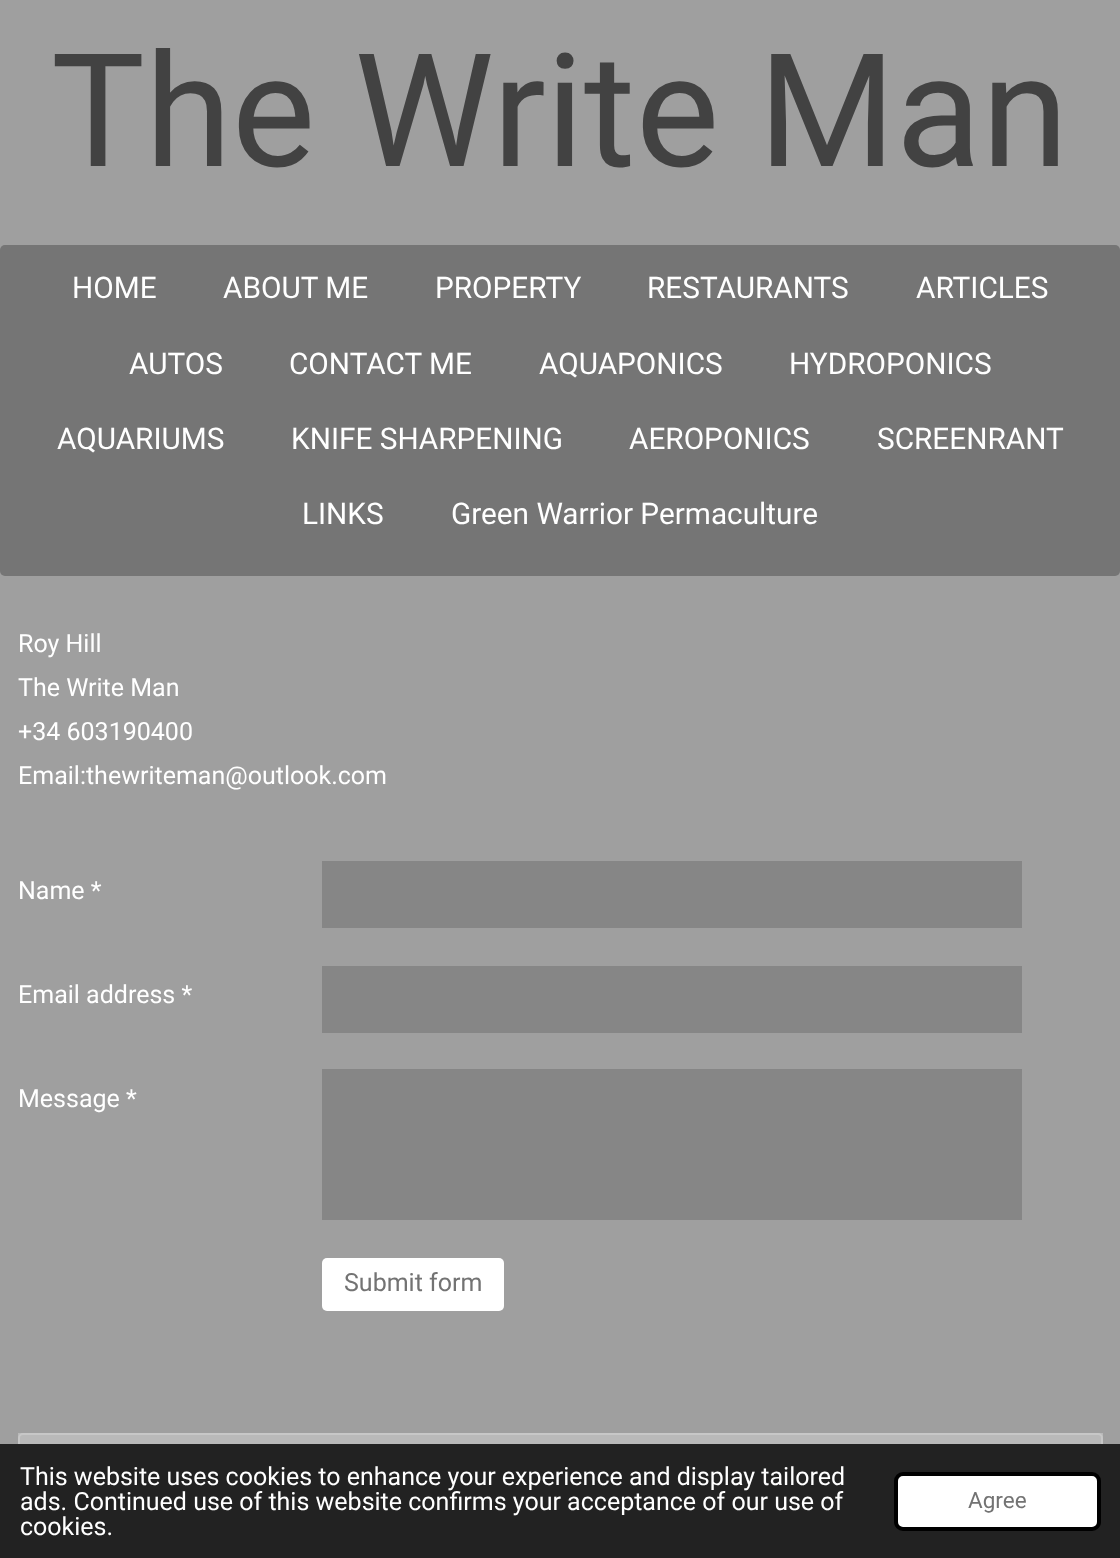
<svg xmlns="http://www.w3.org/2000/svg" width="1120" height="1558">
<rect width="100%" height="100%" fill="#9f9f9f"/>
<text x="51" y="166" style="font-family:Roboto;font-size:157.5px;fill:#424242">The Write Man</text>
<rect y="245" width="1120" height="331" rx="5" fill="#757575"/>
<text x="72" y="298" style="font-family:Roboto;font-size:29.75px;fill:#fff">HOME</text>
<text x="223" y="298" style="font-family:Roboto;font-size:29.75px;fill:#fff">ABOUT ME</text>
<text x="435" y="298" style="font-family:Roboto;font-size:29.75px;fill:#fff">PROPERTY</text>
<text x="647" y="298" style="font-family:Roboto;font-size:29.75px;fill:#fff">RESTAURANTS</text>
<text x="916" y="298" style="font-family:Roboto;font-size:29.75px;fill:#fff">ARTICLES</text>
<text x="129" y="374" style="font-family:Roboto;font-size:29.75px;fill:#fff">AUTOS</text>
<text x="289" y="374" style="font-family:Roboto;font-size:29.75px;fill:#fff">CONTACT ME</text>
<text x="539" y="374" style="font-family:Roboto;font-size:29.75px;fill:#fff">AQUAPONICS</text>
<text x="789" y="374" style="font-family:Roboto;font-size:29.75px;fill:#fff">HYDROPONICS</text>
<text x="57" y="449" style="font-family:Roboto;font-size:29.75px;fill:#fff">AQUARIUMS</text>
<text x="291" y="449" style="font-family:Roboto;font-size:29.75px;fill:#fff">KNIFE SHARPENING</text>
<text x="629" y="449" style="font-family:Roboto;font-size:29.75px;fill:#fff">AEROPONICS</text>
<text x="877" y="449" style="font-family:Roboto;font-size:29.75px;fill:#fff">SCREENRANT</text>
<text x="302" y="524" style="font-family:Roboto;font-size:29.75px;fill:#fff">LINKS</text>
<text x="451" y="524" style="font-family:Roboto;font-size:29.75px;fill:#fff">Green Warrior Permaculture</text>
<text x="18" y="652" style="font-family:Roboto;font-size:25px;fill:#fff">Roy Hill</text>
<text x="18" y="696" style="font-family:Roboto;font-size:25px;fill:#fff">The Write Man</text>
<text x="18" y="740" style="font-family:Roboto;font-size:25px;fill:#fff">+34 603190400</text>
<text x="18" y="784" style="font-family:Roboto;font-size:25px;fill:#fff">Email:thewriteman@outlook.com</text>
<text x="18" y="899" style="font-family:Roboto;font-size:25px;fill:#fff">Name *</text>
<rect x="322" y="861" width="700" height="67" fill="#868686"/>
<text x="18" y="1003" style="font-family:Roboto;font-size:25px;fill:#fff">Email address *</text>
<rect x="322" y="966" width="700" height="67" fill="#868686"/>
<text x="18" y="1107" style="font-family:Roboto;font-size:25px;fill:#fff">Message *</text>
<rect x="322" y="1069" width="700" height="151" fill="#868686"/>
<rect x="322" y="1258" width="182" height="53" rx="5" fill="#fff"/>
<text x="344" y="1291" style="font-family:Roboto;font-size:25px;fill:#737373">Submit form</text>
<rect x="18" y="1433" width="1085" height="11" fill="#b9b9b9"/>
<rect x="19" y="1434" width="1083" height="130" rx="4" fill="none" stroke="#c7c7c7" stroke-width="2"/>
<rect y="1444" width="1120" height="114" fill="#222"/>
<text x="20" y="1485" style="font-family:Roboto;font-size:25px;fill:#fff">This website uses cookies to enhance your experience and display tailored</text>
<text x="20" y="1510" style="font-family:Roboto;font-size:25px;fill:#fff">ads. Continued use of this website confirms your acceptance of our use of</text>
<text x="20" y="1535" style="font-family:Roboto;font-size:25px;fill:#fff">cookies.</text>
<rect x="896" y="1474" width="203" height="55" rx="7" fill="#fff" stroke="#000" stroke-width="4"/>
<text x="968" y="1508" style="font-family:Roboto;font-size:22.5px;fill:#737373">Agree</text>
</svg>
